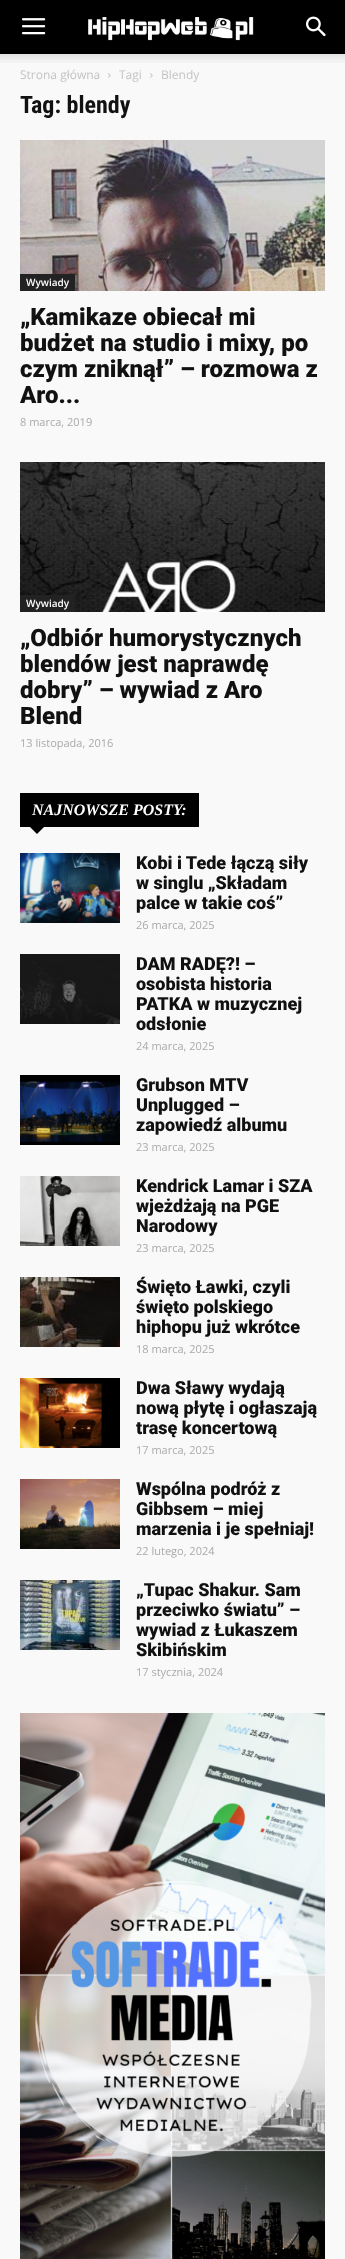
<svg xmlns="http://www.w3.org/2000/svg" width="345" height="2259">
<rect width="100%" height="100%" fill="#f9f9f9"/>
<rect width="345" height="54" fill="#000"/>
<image x="22" y="18" width="24" height="17" href="media/1.png"/>
<image x="88" y="17" width="166" height="24" href="media/2.png"/>
<image x="306" y="16" width="20" height="21" href="media/3.png"/>
<image x="0" y="54" width="345" height="9" href="media/4.png"/>
<text x="20" y="79" style="font-family:Open Sans;font-size:12px;fill:#c3c3c3">Strona główna</text>
<image x="108" y="73" width="3" height="5" href="media/5.png"/>
<text x="119" y="79" style="font-family:Open Sans;font-size:12px;fill:#c3c3c3">Tagi</text>
<image x="150" y="73" width="3" height="5" href="media/5.png"/>
<text x="161" y="79" style="font-family:Open Sans;font-size:12px;fill:#c3c3c3">Blendy</text>
<text x="20" y="113" style="font-family:Roboto Condensed;font-size:24px;font-weight:bold;fill:#111">Tag: blendy</text>
<image x="20" y="140" width="305" height="151" href="media/6.png"/>
<rect x="20" y="274" width="55" height="17" fill="#222"/>
<text x="26" y="286" style="font-family:Open Sans;font-size:10px;font-weight:600;fill:#fff">Wywiady</text>
<text x="20" y="325" style="font-family:Roboto;font-size:24px;font-weight:900;fill:#111">„Kamikaze obiecał mi</text>
<text x="20" y="351" style="font-family:Roboto;font-size:24px;font-weight:900;fill:#111">budżet na studio i mixy, po</text>
<text x="20" y="377" style="font-family:Roboto;font-size:24px;font-weight:900;fill:#111">czym zniknął” – rozmowa z</text>
<text x="20" y="403" style="font-family:Roboto;font-size:24px;font-weight:900;fill:#111">Aro...</text>
<text x="20" y="426" style="font-family:Open Sans;font-size:11px;fill:#aaa">8 marca, 2019</text>
<image x="20" y="462" width="305" height="150" href="media/7.png"/>
<rect x="20" y="595" width="55" height="17" fill="#222"/>
<text x="26" y="607" style="font-family:Open Sans;font-size:10px;font-weight:600;fill:#fff">Wywiady</text>
<text x="20" y="646" style="font-family:Roboto;font-size:24px;font-weight:900;fill:#111">„Odbiór humorystycznych</text>
<text x="20" y="672" style="font-family:Roboto;font-size:24px;font-weight:900;fill:#111">blendów jest naprawdę</text>
<text x="20" y="698" style="font-family:Roboto;font-size:24px;font-weight:900;fill:#111">dobry” – wywiad z Aro</text>
<text x="20" y="724" style="font-family:Roboto;font-size:24px;font-weight:900;fill:#111">Blend</text>
<text x="20" y="747" style="font-family:Open Sans;font-size:11px;fill:#aaa">13 listopada, 2016</text>
<rect x="20" y="793" width="179" height="34" fill="#000"/>
<text x="32" y="815" style="font-family:Liberation Serif;font-size:16px;font-weight:bold;font-style:italic;fill:#fff">NAJNOWSZE POSTY:</text>
<path d="M30 827h14l-7 7z" fill="#000"/>
<image x="20" y="853" width="100" height="70" href="media/8.png"/>
<text x="136" y="869" style="font-family:Roboto;font-size:18px;font-weight:900;fill:#111">Kobi i Tede łączą siły</text>
<text x="136" y="889" style="font-family:Roboto;font-size:18px;font-weight:900;fill:#111">w singlu „Składam</text>
<text x="136" y="909" style="font-family:Roboto;font-size:18px;font-weight:900;fill:#111">palce w takie coś”</text>
<text x="136" y="929" style="font-family:Open Sans;font-size:11px;fill:#aaa">26 marca, 2025</text>
<image x="20" y="954" width="100" height="70" href="media/9.png"/>
<text x="136" y="970" style="font-family:Roboto;font-size:18px;font-weight:900;fill:#111">DAM RADĘ?! –</text>
<text x="136" y="990" style="font-family:Roboto;font-size:18px;font-weight:900;fill:#111">osobista historia</text>
<text x="136" y="1010" style="font-family:Roboto;font-size:18px;font-weight:900;fill:#111">PATKA w muzycznej</text>
<text x="136" y="1030" style="font-family:Roboto;font-size:18px;font-weight:900;fill:#111">odsłonie</text>
<text x="136" y="1050" style="font-family:Open Sans;font-size:11px;fill:#aaa">24 marca, 2025</text>
<image x="20" y="1075" width="100" height="70" href="media/10.png"/>
<text x="136" y="1091" style="font-family:Roboto;font-size:18px;font-weight:900;fill:#111">Grubson MTV</text>
<text x="136" y="1111" style="font-family:Roboto;font-size:18px;font-weight:900;fill:#111">Unplugged –</text>
<text x="136" y="1131" style="font-family:Roboto;font-size:18px;font-weight:900;fill:#111">zapowiedź albumu</text>
<text x="136" y="1151" style="font-family:Open Sans;font-size:11px;fill:#aaa">23 marca, 2025</text>
<image x="20" y="1176" width="100" height="70" href="media/11.png"/>
<text x="136" y="1192" style="font-family:Roboto;font-size:18px;font-weight:900;fill:#111">Kendrick Lamar i SZA</text>
<text x="136" y="1212" style="font-family:Roboto;font-size:18px;font-weight:900;fill:#111">wjeżdżają na PGE</text>
<text x="136" y="1232" style="font-family:Roboto;font-size:18px;font-weight:900;fill:#111">Narodowy</text>
<text x="136" y="1252" style="font-family:Open Sans;font-size:11px;fill:#aaa">23 marca, 2025</text>
<image x="20" y="1277" width="100" height="70" href="media/12.png"/>
<text x="136" y="1293" style="font-family:Roboto;font-size:18px;font-weight:900;fill:#111">Święto Ławki, czyli</text>
<text x="136" y="1313" style="font-family:Roboto;font-size:18px;font-weight:900;fill:#111">święto polskiego</text>
<text x="136" y="1333" style="font-family:Roboto;font-size:18px;font-weight:900;fill:#111">hiphopu już wkrótce</text>
<text x="136" y="1353" style="font-family:Open Sans;font-size:11px;fill:#aaa">18 marca, 2025</text>
<image x="20" y="1378" width="100" height="70" href="media/13.png"/>
<text x="136" y="1394" style="font-family:Roboto;font-size:18px;font-weight:900;fill:#111">Dwa Sławy wydają</text>
<text x="136" y="1414" style="font-family:Roboto;font-size:18px;font-weight:900;fill:#111">nową płytę i ogłaszają</text>
<text x="136" y="1434" style="font-family:Roboto;font-size:18px;font-weight:900;fill:#111">trasę koncertową</text>
<text x="136" y="1454" style="font-family:Open Sans;font-size:11px;fill:#aaa">17 marca, 2025</text>
<image x="20" y="1479" width="100" height="70" href="media/14.png"/>
<text x="136" y="1495" style="font-family:Roboto;font-size:18px;font-weight:900;fill:#111">Wspólna podróż z</text>
<text x="136" y="1515" style="font-family:Roboto;font-size:18px;font-weight:900;fill:#111">Gibbsem – miej</text>
<text x="136" y="1535" style="font-family:Roboto;font-size:18px;font-weight:900;fill:#111">marzenia i je spełniaj!</text>
<text x="136" y="1555" style="font-family:Open Sans;font-size:11px;fill:#aaa">22 lutego, 2024</text>
<image x="20" y="1580" width="100" height="70" href="media/15.png"/>
<text x="136" y="1596" style="font-family:Roboto;font-size:18px;font-weight:900;fill:#111">„Tupac Shakur. Sam</text>
<text x="136" y="1616" style="font-family:Roboto;font-size:18px;font-weight:900;fill:#111">przeciwko światu” –</text>
<text x="136" y="1636" style="font-family:Roboto;font-size:18px;font-weight:900;fill:#111">wywiad z Łukaszem</text>
<text x="136" y="1656" style="font-family:Roboto;font-size:18px;font-weight:900;fill:#111">Skibińskim</text>
<text x="136" y="1676" style="font-family:Open Sans;font-size:11px;fill:#aaa">17 stycznia, 2024</text>
<image x="20" y="1713" width="305" height="546" href="media/16.png"/>
</svg>
